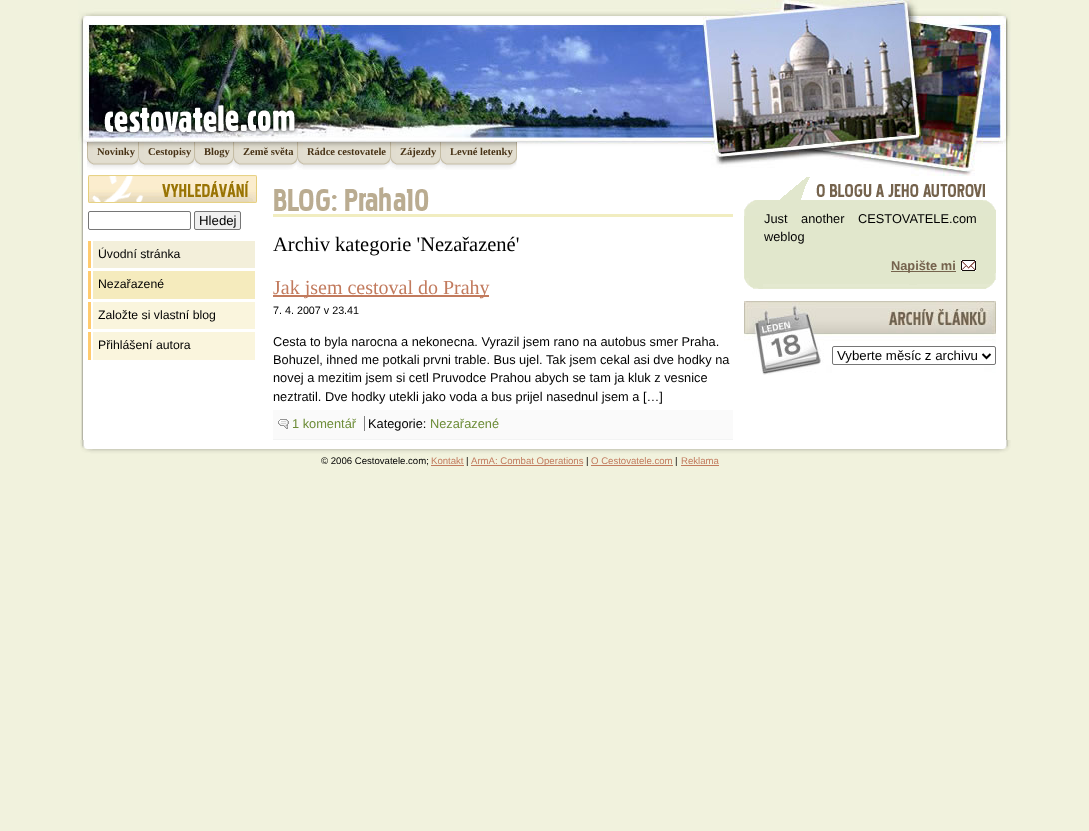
<svg xmlns="http://www.w3.org/2000/svg" width="1089" height="831">
<rect width="100%" height="100%" fill="#f1f2dd"/>
<image x="81" y="175" width="927" height="265" href="media/1.png"/>
<image x="78" y="0" width="933" height="175" href="media/2.png"/>
<image x="102" y="102" width="196" height="34" href="media/3.png"/>
<image x="744" y="175" width="252" height="41" href="media/17.png"/>
<image x="703" y="0" width="289" height="177" href="media/4.png"/>
<image x="87" y="142" width="6" height="28" href="media/5.png"/>
<image x="93" y="142" width="45" height="28" href="media/6.png"/>
<text x="97" y="155" style="font-family:Liberation Serif;font-size:10.5px;font-weight:bold;fill:#473215">Novinky</text>
<image x="138" y="142" width="6" height="28" href="media/5.png"/>
<image x="144" y="142" width="50" height="28" href="media/7.png"/>
<text x="148" y="155" style="font-family:Liberation Serif;font-size:10.5px;font-weight:bold;fill:#473215">Cestopisy</text>
<image x="194" y="142" width="6" height="28" href="media/8.png"/>
<image x="200" y="142" width="33" height="28" href="media/9.png"/>
<text x="204" y="155" style="font-family:Liberation Serif;font-size:10.5px;font-weight:bold;fill:#473215">Blogy</text>
<image x="233" y="142" width="6" height="28" href="media/8.png"/>
<image x="239" y="142" width="58" height="28" href="media/10.png"/>
<text x="243" y="155" style="font-family:Liberation Serif;font-size:10.5px;font-weight:bold;fill:#473215">Země světa</text>
<image x="297" y="142" width="6" height="28" href="media/8.png"/>
<image x="303" y="142" width="87" height="28" href="media/11.png"/>
<text x="307" y="155" style="font-family:Liberation Serif;font-size:10.5px;font-weight:bold;fill:#473215">Rádce cestovatele</text>
<image x="390" y="142" width="6" height="28" href="media/8.png"/>
<image x="396" y="142" width="44" height="28" href="media/12.png"/>
<text x="400" y="155" style="font-family:Liberation Serif;font-size:10.5px;font-weight:bold;fill:#473215">Zájezdy</text>
<image x="440" y="142" width="6" height="28" href="media/5.png"/>
<image x="446" y="142" width="71" height="28" href="media/13.png"/>
<text x="450" y="155" style="font-family:Liberation Serif;font-size:10.5px;font-weight:bold;fill:#473215">Levné letenky</text>
<image x="88" y="175" width="169" height="28" href="media/14.png"/>
<rect x="88.5" y="211.5" width="102" height="18" rx="1.5" fill="none" stroke="#767676"/>
<rect x="194.5" y="211.5" width="46" height="18" rx="1.5" fill="#efefef" stroke="#767676"/>
<text x="199" y="225" style="font-family:Liberation Sans;font-size:13.25px;fill:#000">Hledej</text>
<rect x="88" y="241" width="3" height="27" fill="#ffcb6e"/>
<rect x="93" y="241" width="162" height="27" fill="#f3efda"/>
<text x="98" y="258" style="font-family:Liberation Sans;font-size:12.25px;fill:#000">Úvodní stránka</text>
<rect x="88" y="271" width="3" height="28" fill="#ffcb6e"/>
<rect x="93" y="271" width="162" height="28" fill="#f5ebbd"/>
<text x="98" y="288" style="font-family:Liberation Sans;font-size:12.25px;fill:#000">Nezařazené</text>
<rect x="88" y="302" width="3" height="27" fill="#ffcb6e"/>
<rect x="93" y="302" width="162" height="27" fill="#faf5dd"/>
<text x="98" y="319" style="font-family:Liberation Sans;font-size:12.25px;fill:#000">Založte si vlastní blog</text>
<rect x="88" y="332" width="3" height="28" fill="#ffcb6e"/>
<rect x="93" y="332" width="162" height="28" fill="#faf5dd"/>
<text x="98" y="349" style="font-family:Liberation Sans;font-size:12.25px;fill:#000">Přihlášení autora</text>
<rect x="273" y="214" width="460" height="3" fill="#f1edc0"/>
<image x="274" y="187" width="155" height="24" href="media/15.png"/>
<text x="273" y="251" style="font-family:Liberation Serif;font-size:20.5px;fill:#000">Archiv kategorie 'Nezařazené'</text>
<rect x="273" y="295" width="216" height="2" fill="#c27b5e"/>
<text x="273" y="294" style="font-family:Liberation Serif;font-size:20px;fill:#c27b5e">Jak jsem cestoval do Prahy</text>
<text x="273" y="314" style="font-family:Liberation Sans;font-size:10.75px;fill:#000">7. 4. 2007 v 23.41</text>
<text x="273" y="346" style="font-family:Liberation Sans;font-size:12.8px;fill:#000">Cesta to byla narocna a nekonecna. Vyrazil jsem rano na autobus smer Praha.</text>
<text x="273" y="364" style="font-family:Liberation Sans;font-size:12.8px;fill:#000">Bohuzel, ihned me potkali prvni trable. Bus ujel. Tak jsem cekal asi dve hodky na</text>
<text x="273" y="382" style="font-family:Liberation Sans;font-size:12.8px;fill:#000">novej a mezitim jsem si cetl Pruvodce Prahou abych se tam ja kluk z vesnice</text>
<text x="273" y="401" style="font-family:Liberation Sans;font-size:12.8px;fill:#000">neztratil. Dve hodky utekli jako voda a bus prijel nasednul jsem a […]</text>
<rect x="273" y="410" width="460" height="29" fill="#fafafa"/>
<rect x="273" y="439" width="460" height="1" fill="#f3f4f4"/>
<image x="278" y="419" width="11" height="10" href="media/16.png"/>
<text x="292" y="428" style="font-family:Liberation Sans;font-size:12.8px;fill:#6c8c37">1 komentář</text>
<rect x="364" y="416" width="1" height="15" fill="#808080"/>
<text x="368" y="428" style="font-family:Liberation Sans;font-size:12.8px;fill:#000">Kategorie:</text>
<text x="430" y="428" style="font-family:Liberation Sans;font-size:12.8px;fill:#6c8c37">Nezařazené</text>
<rect x="744" y="216" width="252" height="57" fill="#e1e7cc"/>
<image x="744" y="273" width="252" height="16" href="media/18.png"/>
<text x="764" y="223" word-spacing="10" style="font-family:Liberation Sans;font-size:12.8px;fill:#000">Just another CESTOVATELE.com</text>
<text x="764" y="241" style="font-family:Liberation Sans;font-size:12.8px;fill:#000">weblog</text>
<rect x="891" y="271" width="65" height="1" fill="#75634d"/>
<text x="891" y="270" style="font-family:Liberation Sans;font-size:12.8px;font-weight:bold;fill:#75634d">Napište mi</text>
<image x="961" y="260" width="15" height="11" href="media/19.png"/>
<image x="744" y="301" width="252" height="74" href="media/20.png"/>
<rect x="832.5" y="346.5" width="163" height="18" rx="1.5" fill="none" stroke="#767676"/>
<path d="M982.5 354l4 4l4-4" fill="none" stroke="#000" stroke-width="2"/>
<text x="837" y="360" style="font-family:Liberation Sans;font-size:13.25px;fill:#000">Vyberte měsíc z archivu</text>
<image x="80" y="440" width="931" height="69" href="media/21.png"/>
<text x="321" y="464" style="font-family:Liberation Sans;font-size:9.6px;fill:#000">© 2006 Cestovatele.com;</text>
<text x="431" y="464" style="font-family:Liberation Sans;font-size:9.6px;fill:#c27b5e">Kontakt</text>
<rect x="431" y="465" width="33" height="1" fill="#c27b5e"/>
<text x="466" y="464" style="font-family:Liberation Sans;font-size:9.6px;fill:#000">|</text>
<rect x="471" y="465" width="112" height="1" fill="#c27b5e"/>
<text x="471" y="464" style="font-family:Liberation Sans;font-size:9.6px;fill:#c27b5e">ArmA: Combat Operations</text>
<text x="586" y="464" style="font-family:Liberation Sans;font-size:9.6px;fill:#000">|</text>
<text x="591" y="464" style="font-family:Liberation Sans;font-size:9.6px;fill:#c27b5e">O Cestovatele.com</text>
<rect x="591" y="465" width="82" height="1" fill="#c27b5e"/>
<text x="675" y="464" style="font-family:Liberation Sans;font-size:9.6px;fill:#000">|</text>
<text x="681" y="464" style="font-family:Liberation Sans;font-size:9.6px;fill:#c27b5e">Reklama</text>
<rect x="681" y="465" width="38" height="1" fill="#c27b5e"/>
</svg>
